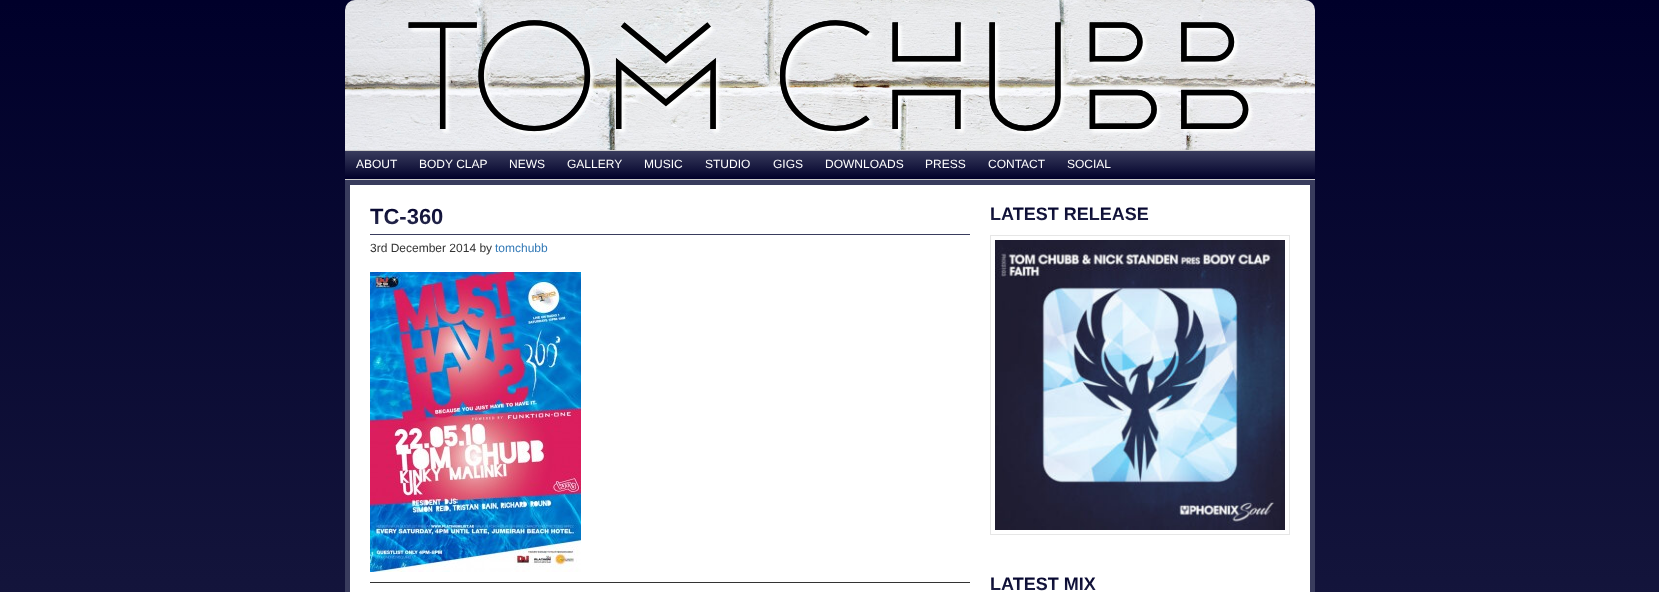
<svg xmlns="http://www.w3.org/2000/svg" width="1659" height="592">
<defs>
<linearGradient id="g1" gradientUnits="userSpaceOnUse" x1="670" y1="205" x2="670" y2="235"><stop offset="0" stop-color="#00002a"/><stop offset="1" stop-color="#393c5d"/></linearGradient>
<linearGradient id="g2" gradientUnits="userSpaceOnUse" x1="1140" y1="205" x2="1140" y2="235"><stop offset="0" stop-color="#00002a"/><stop offset="1" stop-color="#393c5d"/></linearGradient>
<linearGradient id="g3" gradientUnits="userSpaceOnUse" x1="1140" y1="575" x2="1140" y2="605"><stop offset="0" stop-color="#00002a"/><stop offset="1" stop-color="#393c5d"/></linearGradient>
<linearGradient id="g4" gradientUnits="userSpaceOnUse" x1="829" y1="0" x2="830" y2="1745"><stop offset="0" stop-color="#00002a"/><stop offset="1" stop-color="#393c5d"/></linearGradient>
<linearGradient id="g5" gradientUnits="userSpaceOnUse" x1="830" y1="151" x2="830" y2="179"><stop offset="0" stop-color="#393c5d"/><stop offset="1" stop-color="#00002a"/></linearGradient>
</defs>
<rect width="100%" height="100%" fill="#fff"/>
<rect width="1659" height="592" fill="url(#g4)"/>
<image x="345" y="0" width="970" height="150" href="media/1.png"/>
<rect x="345" y="151" width="970" height="28" fill="url(#g5)"/>
<rect x="345" y="150" width="970" height="1" fill="#ccc"/>
<rect x="345" y="179" width="970" height="1" fill="#ccc"/>
<text x="356" y="168" style="font-family:Liberation Sans;font-size:12px;fill:#fff">ABOUT</text>
<text x="419" y="168" style="font-family:Liberation Sans;font-size:12px;fill:#fff">BODY CLAP</text>
<text x="509" y="168" style="font-family:Liberation Sans;font-size:12px;fill:#fff">NEWS</text>
<text x="567" y="168" style="font-family:Liberation Sans;font-size:12px;fill:#fff">GALLERY</text>
<text x="644" y="168" style="font-family:Liberation Sans;font-size:12px;fill:#fff">MUSIC</text>
<text x="705" y="168" style="font-family:Liberation Sans;font-size:12px;fill:#fff">STUDIO</text>
<text x="773" y="168" style="font-family:Liberation Sans;font-size:12px;fill:#fff">GIGS</text>
<text x="825" y="168" style="font-family:Liberation Sans;font-size:12px;fill:#fff">DOWNLOADS</text>
<text x="925" y="168" style="font-family:Liberation Sans;font-size:12px;fill:#fff">PRESS</text>
<text x="988" y="168" style="font-family:Liberation Sans;font-size:12px;fill:#fff">CONTACT</text>
<text x="1067" y="168" style="font-family:Liberation Sans;font-size:12px;fill:#fff">SOCIAL</text>
<rect x="347.5" y="182.5" width="965" height="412" fill="#fff" stroke="#393c5d" stroke-width="5"/>
<rect x="370" y="234" width="600" height="1" fill="#393c5d"/>
<text x="370" y="224" style="font-family:Liberation Sans;font-size:22px;font-weight:bold;fill:url(#g1)">TC-360</text>
<text x="370" y="252" style="font-family:Liberation Sans;font-size:12px;fill:#333">3rd December 2014 by</text>
<text x="495" y="252" style="font-family:Liberation Sans;font-size:12px;fill:#337ab7">tomchubb</text>
<image x="370" y="272" width="211" height="300" href="media/2.png"/>
<rect x="370" y="582" width="600" height="1" fill="#333"/>
<text x="990" y="220" style="font-family:Liberation Sans;font-size:18px;font-weight:bold;fill:url(#g2)">LATEST RELEASE</text>
<rect x="990.5" y="235.5" width="299" height="299" fill="none" stroke="#e6e6e6"/>
<image x="995" y="240" width="290" height="290" href="media/3.png"/>
<text x="990" y="590" style="font-family:Liberation Sans;font-size:18px;font-weight:bold;fill:url(#g3)">LATEST MIX</text>
</svg>
